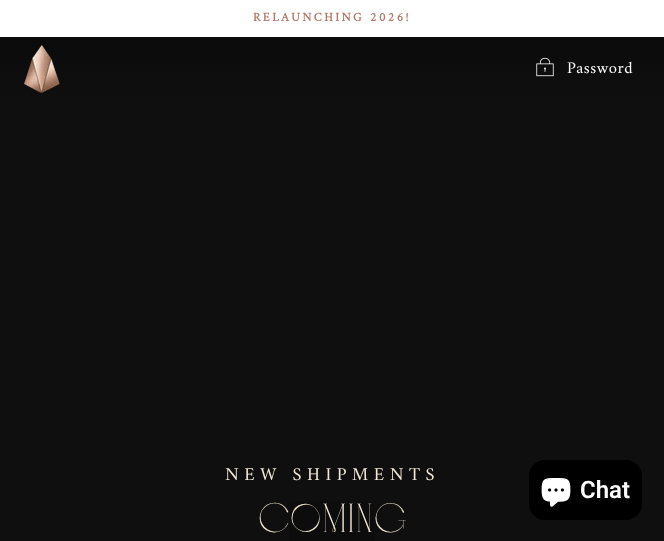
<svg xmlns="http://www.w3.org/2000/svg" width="664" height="541">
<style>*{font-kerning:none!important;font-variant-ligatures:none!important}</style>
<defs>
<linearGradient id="g1" gradientUnits="userSpaceOnUse" x1="332" y1="37" x2="332" y2="101"><stop offset="0" stop-color="#0b0b0b"/><stop offset="1" stop-color="#0f0f0f"/></linearGradient>
<radialGradient id="g2" gradientUnits="userSpaceOnUse" cx="0" cy="0" r="1" gradientTransform="matrix(434 0 0 224 332 523)"><stop offset="0" stop-color="#0c0c0c"/><stop offset="0.6" stop-color="#0f0f0f"/></radialGradient>
</defs>
<rect width="100%" height="100%" fill="#fff"/>
<text x="253" y="21" style="font-family:Amiri;font-size:12.2px;font-weight:bold;letter-spacing:2.4px;fill:#b17968">RELAUNCHING 2026!</text>
<rect y="37" width="664" height="64" fill="url(#g1)"/>
<image x="24" y="45" width="36" height="49" href="media/1.png"/>
<image x="536" y="57" width="18" height="20" href="media/2.png"/>
<text x="567" y="73" style="font-family:Amiri;font-size:16.5px;letter-spacing:0.5px;fill:#fff">Password</text>
<rect y="101" width="664" height="440" fill="#0f0f0f"/>
<text x="225" y="480" style="font-family:Amiri;font-size:18.25px;letter-spacing:5.5px;fill:#f4e9d7">NEW SHIPMENTS</text>
<rect x="289" y="501" width="86" height="40" fill="url(#g2)"/>
<text x="258" y="532" style="font-family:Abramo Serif;font-size:45.5px;fill:#f4e9d7">COMING</text>
<rect x="529" y="460" width="113" height="60" rx="16" fill="#000"/>
<image x="541" y="478" width="30" height="29" href="media/3.png"/>
<text x="580" y="498" style="font-family:Roboto;font-size:24px;font-weight:600;fill:#fff">Chat</text>
</svg>
